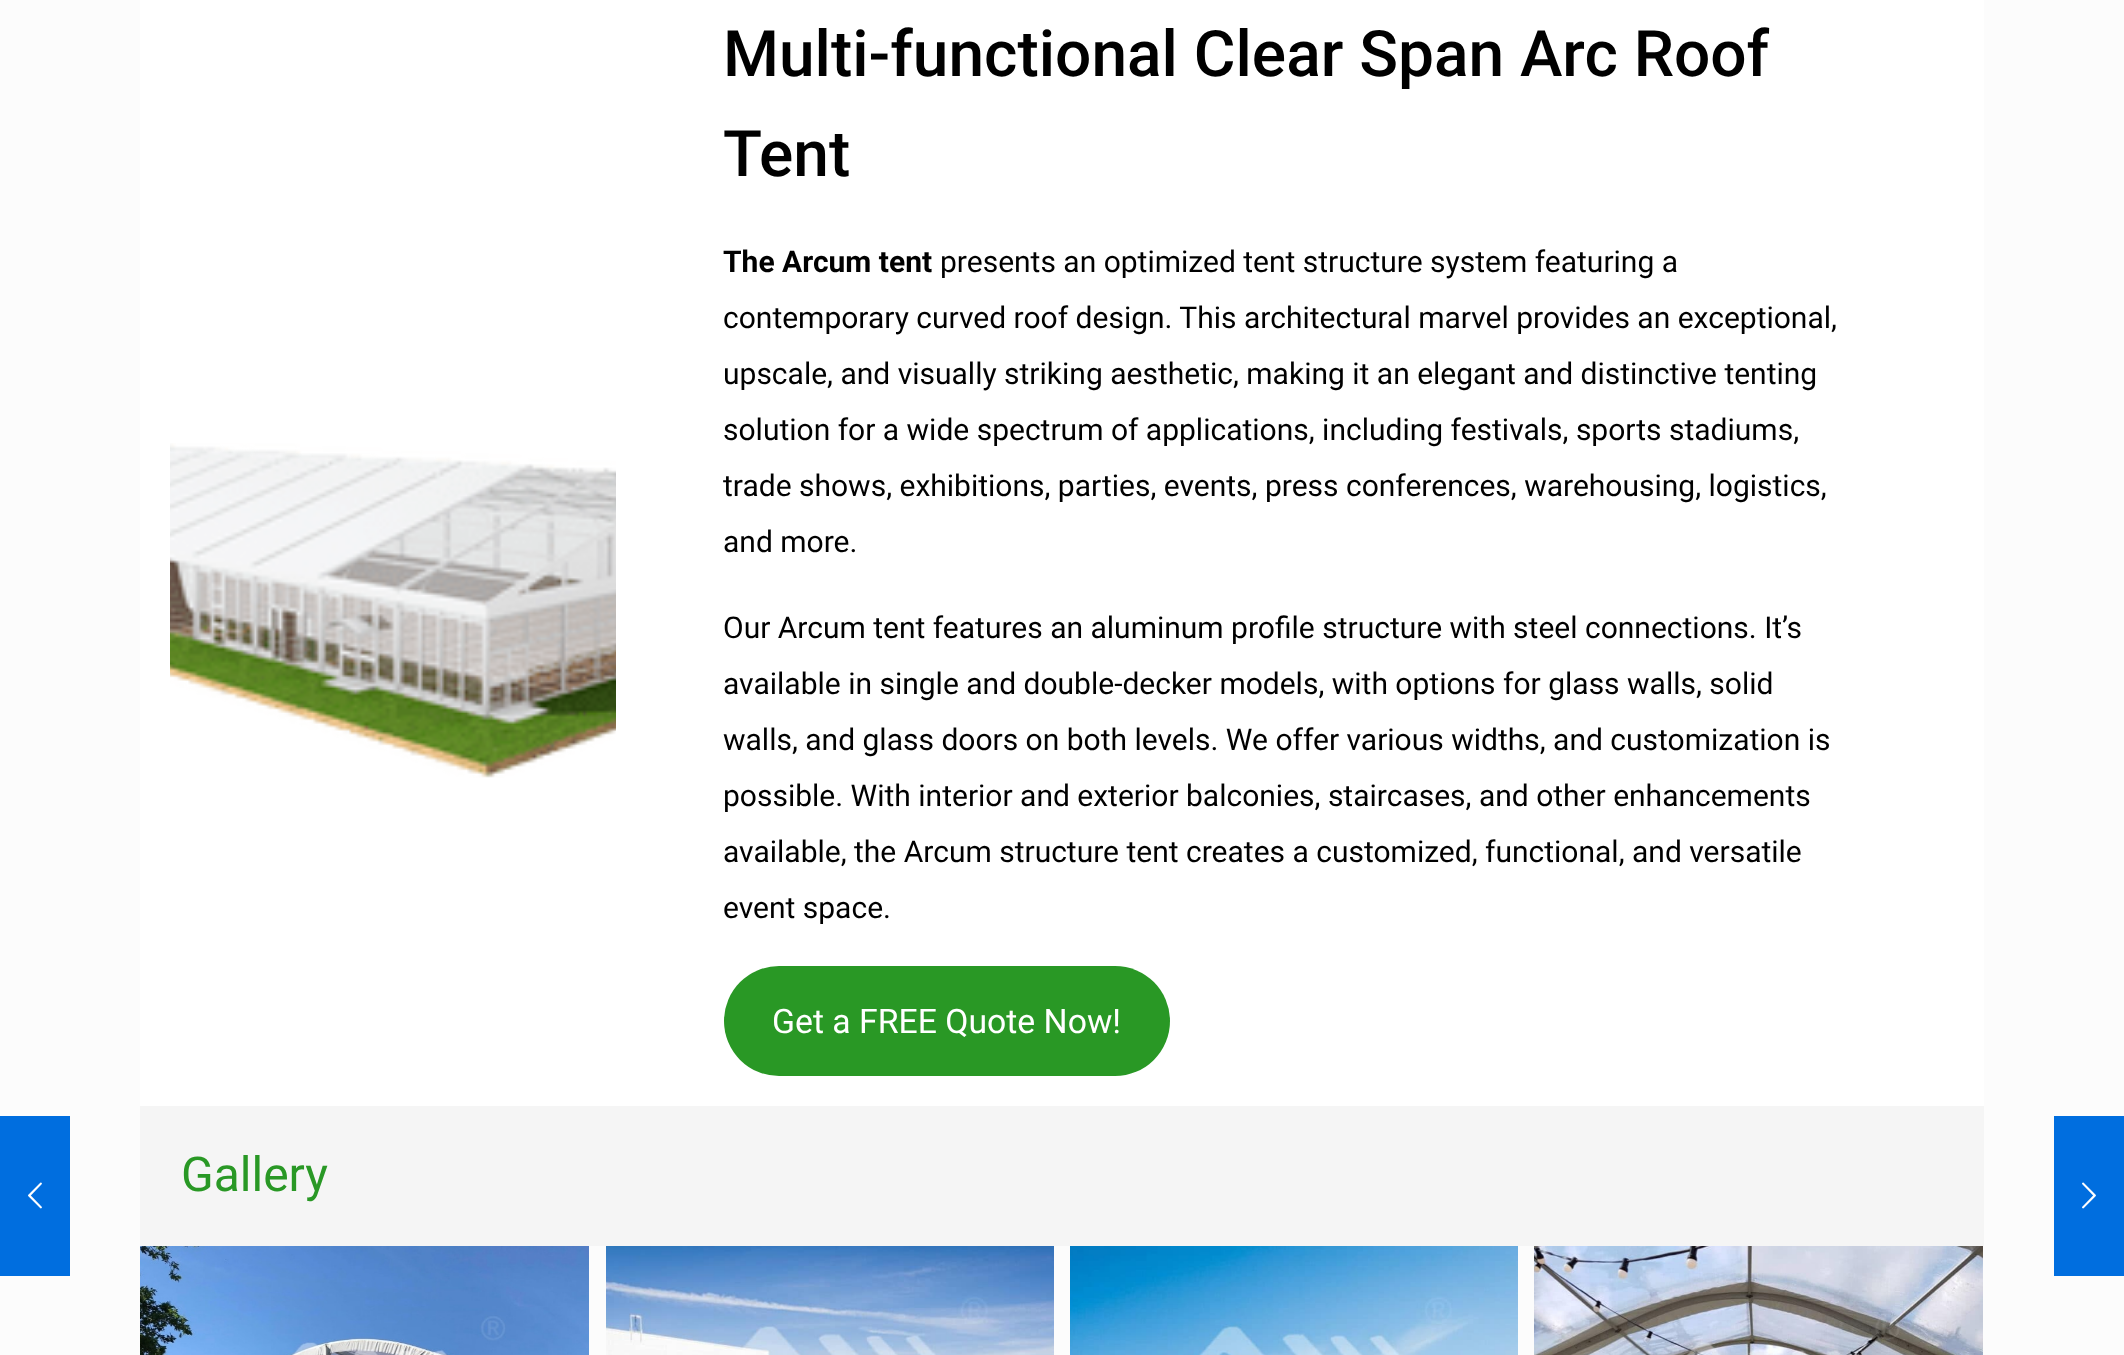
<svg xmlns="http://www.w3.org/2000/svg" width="2124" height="1355">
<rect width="100%" height="100%" fill="#fcfcfc"/>
<rect y="1116" width="70" height="160" fill="#006edf"/>
<image x="28" y="1182" width="14" height="27" href="media/1.png"/>
<rect x="140" width="1844" height="1106" fill="#fff"/>
<image x="170" y="443" width="446" height="335" href="media/2.png"/>
<text x="723" y="76" style="font-family:Roboto;font-size:64px;font-weight:500;fill:#000">Multi-functional Clear Span Arc Roof</text>
<text x="723" y="176" style="font-family:Roboto;font-size:64px;font-weight:500;fill:#000">Tent</text>
<text x="723" y="272" style="font-family:Roboto;font-size:30px;font-weight:bold;fill:#000">The Arcum tent</text>
<text x="940" y="272" style="font-family:Roboto;font-size:30px;fill:#000">presents an optimized tent structure system featuring a</text>
<text x="723" y="328" style="font-family:Roboto;font-size:30px;fill:#000">contemporary curved roof design. This architectural marvel provides an exceptional,</text>
<text x="723" y="384" style="font-family:Roboto;font-size:30px;fill:#000">upscale, and visually striking aesthetic, making it an elegant and distinctive tenting</text>
<text x="723" y="440" style="font-family:Roboto;font-size:30px;fill:#000">solution for a wide spectrum of applications, including festivals, sports stadiums,</text>
<text x="723" y="496" style="font-family:Roboto;font-size:30px;fill:#000">trade shows, exhibitions, parties, events, press conferences, warehousing, logistics,</text>
<text x="723" y="552" style="font-family:Roboto;font-size:30px;fill:#000">and more.</text>
<text x="723" y="638" style="font-family:Roboto;font-size:30px;fill:#000">Our Arcum tent features an aluminum profile structure with steel connections. It’s</text>
<text x="723" y="694" style="font-family:Roboto;font-size:30px;fill:#000">available in single and double-decker models, with options for glass walls, solid</text>
<text x="723" y="750" style="font-family:Roboto;font-size:30px;fill:#000">walls, and glass doors on both levels. We offer various widths, and customization is</text>
<text x="723" y="806" style="font-family:Roboto;font-size:30px;fill:#000">possible. With interior and exterior balconies, staircases, and other enhancements</text>
<text x="723" y="862" style="font-family:Roboto;font-size:30px;fill:#000">available, the Arcum structure tent creates a customized, functional, and versatile</text>
<text x="723" y="918" style="font-family:Roboto;font-size:30px;fill:#000">event space.</text>
<rect x="724" y="966" width="446" height="110" rx="55" fill="#299825"/>
<text x="772" y="1033" style="font-family:Roboto;font-size:33.75px;fill:#fff">Get a FREE Quote Now!</text>
<rect x="140" y="1106" width="1844" height="140" fill="#f5f5f5"/>
<text x="181" y="1191" style="font-family:Roboto;font-size:48px;fill:#299825">Gallery</text>
<image x="140" y="1246" width="449" height="109" href="media/3.png"/>
<image x="606" y="1246" width="448" height="109" href="media/4.png"/>
<image x="1070" y="1246" width="448" height="109" href="media/5.png"/>
<image x="1534" y="1246" width="449" height="109" href="media/6.png"/>
<rect x="2054" y="1116" width="70" height="160" fill="#006edf"/>
<image x="2082" y="1182" width="14" height="27" href="media/7.png"/>
</svg>
